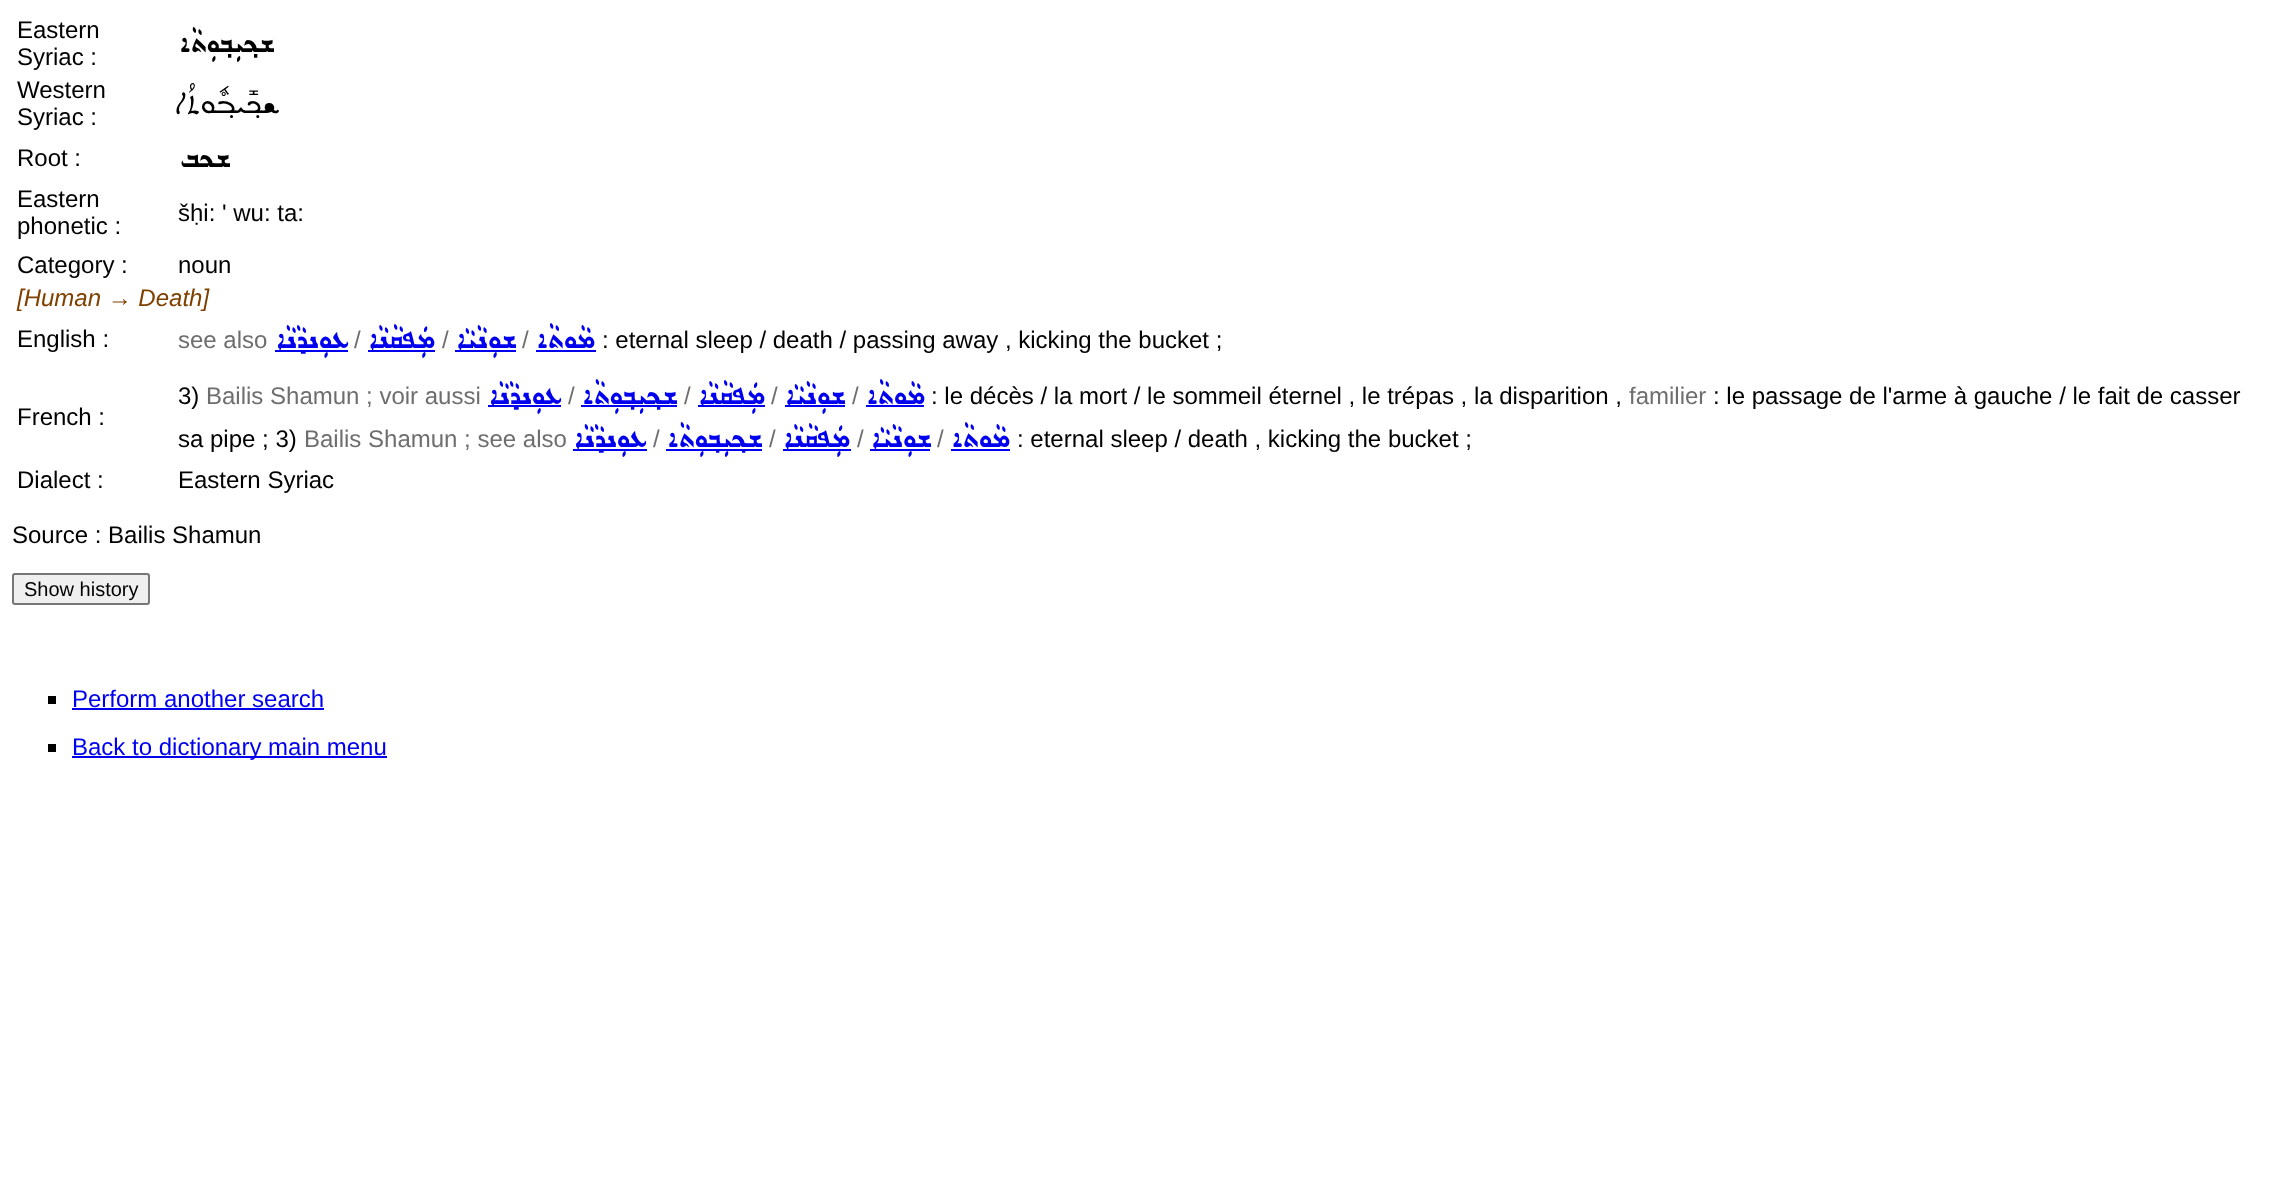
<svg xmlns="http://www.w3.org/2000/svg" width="2287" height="1193">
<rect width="100%" height="100%" fill="#fff"/>
<text x="17" y="38" style="font-family:Liberation Sans;font-size:24px;fill:#000">Eastern</text>
<text x="17" y="65" style="font-family:Liberation Sans;font-size:24px;fill:#000">Syriac :</text>
<text x="274" y="52" style="font-family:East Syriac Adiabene;font-size:38px;direction:rtl;fill:#000">ܫܟ݂ܝܼܒ݂ܘܼܬܵܐ</text>
<text x="17" y="98" style="font-family:Liberation Sans;font-size:24px;fill:#000">Western</text>
<text x="17" y="125" style="font-family:Liberation Sans;font-size:24px;fill:#000">Syriac :</text>
<text x="279" y="113" style="font-family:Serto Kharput;font-size:41px;direction:rtl;fill:#000">ܫܟ݂ܺܝܒ݂ܽܘܬܳܐ</text>
<text x="17" y="166" style="font-family:Liberation Sans;font-size:24px;fill:#000">Root :</text>
<text x="230" y="167" style="font-family:East Syriac Adiabene;font-size:38px;direction:rtl;fill:#000">ܫܟܒ</text>
<text x="17" y="207" style="font-family:Liberation Sans;font-size:24px;fill:#000">Eastern</text>
<text x="17" y="234" style="font-family:Liberation Sans;font-size:24px;fill:#000">phonetic :</text>
<text x="178" y="221" style="font-family:Liberation Sans;font-size:24px;fill:#000">šḥi: ' wu: ta:</text>
<text x="17" y="273" style="font-family:Liberation Sans;font-size:24px;fill:#000">Category :</text>
<text x="178" y="273" style="font-family:Liberation Sans;font-size:24px;fill:#000">noun</text>
<text x="17" y="306" style="font-family:Liberation Sans;font-size:24px;font-style:italic;fill:#804000">[Human → Death]</text>
<text x="17" y="347" style="font-family:Liberation Sans;font-size:24px;fill:#000">English :</text>
<text x="178" y="348" style="font-family:Liberation Sans;font-size:24px;fill:#6e6e6e">see also</text>
<rect x="275" y="350" width="73" height="2" fill="#00e"/>
<text x="348" y="348" style="font-family:East Syriac Adiabene;font-size:38px;direction:rtl;fill:#00e">ܥܘܼܢܕܵܢܵܐ</text>
<text x="354" y="348" style="font-family:Liberation Sans;font-size:24px;fill:#6e6e6e">/</text>
<rect x="368" y="350" width="67" height="2" fill="#00e"/>
<text x="435" y="348" style="font-family:East Syriac Adiabene;font-size:38px;direction:rtl;fill:#00e">ܡܲܦܩܵܢܵܐ</text>
<text x="442" y="348" style="font-family:Liberation Sans;font-size:24px;fill:#6e6e6e">/</text>
<rect x="455" y="350" width="61" height="2" fill="#00e"/>
<text x="516" y="348" style="font-family:East Syriac Adiabene;font-size:38px;direction:rtl;fill:#00e">ܫܘܼܢܵܝܵܐ</text>
<text x="522" y="348" style="font-family:Liberation Sans;font-size:24px;fill:#6e6e6e">/</text>
<rect x="536" y="350" width="60" height="2" fill="#00e"/>
<text x="595" y="348" style="font-family:East Syriac Adiabene;font-size:38px;direction:rtl;fill:#00e">ܡܵܘܬܵܐ</text>
<text x="602" y="348" style="font-family:Liberation Sans;font-size:24px;fill:#000">: eternal sleep / death / passing away , kicking the bucket ;</text>
<text x="17" y="425" style="font-family:Liberation Sans;font-size:24px;fill:#000">French :</text>
<text x="178" y="404" style="font-family:Liberation Sans;font-size:24px;fill:#000">3)</text>
<text x="206" y="404" style="font-family:Liberation Sans;font-size:24px;fill:#6e6e6e">Bailis Shamun ; voir aussi</text>
<rect x="488" y="405" width="73" height="2" fill="#00e"/>
<text x="561" y="404" style="font-family:East Syriac Adiabene;font-size:38px;direction:rtl;fill:#00e">ܥܘܼܢܕܵܢܵܐ</text>
<text x="568" y="404" style="font-family:Liberation Sans;font-size:24px;fill:#6e6e6e">/</text>
<rect x="581" y="405" width="96" height="2" fill="#00e"/>
<text x="677" y="404" style="font-family:East Syriac Adiabene;font-size:38px;direction:rtl;fill:#00e">ܫܟ݂ܝܼܒ݂ܘܼܬܵܐ</text>
<text x="684" y="404" style="font-family:Liberation Sans;font-size:24px;fill:#6e6e6e">/</text>
<rect x="698" y="405" width="67" height="2" fill="#00e"/>
<text x="765" y="404" style="font-family:East Syriac Adiabene;font-size:38px;direction:rtl;fill:#00e">ܡܲܦܩܵܢܵܐ</text>
<text x="771" y="404" style="font-family:Liberation Sans;font-size:24px;fill:#6e6e6e">/</text>
<rect x="785" y="405" width="60" height="2" fill="#00e"/>
<text x="845" y="404" style="font-family:East Syriac Adiabene;font-size:38px;direction:rtl;fill:#00e">ܫܘܼܢܵܝܵܐ</text>
<text x="852" y="404" style="font-family:Liberation Sans;font-size:24px;fill:#6e6e6e">/</text>
<rect x="866" y="405" width="58" height="2" fill="#00e"/>
<text x="925" y="404" style="font-family:East Syriac Adiabene;font-size:38px;direction:rtl;fill:#00e">ܡܵܘܬܵܐ</text>
<text x="931" y="404" style="font-family:Liberation Sans;font-size:24px;fill:#000">: le décès / la mort / le sommeil éternel , le trépas , la disparition ,</text>
<text x="1629" y="404" style="font-family:Liberation Sans;font-size:24px;fill:#6e6e6e">familier</text>
<text x="1713" y="404" style="font-family:Liberation Sans;font-size:24px;fill:#000">: le passage de l'arme à gauche / le fait de casser</text>
<text x="178" y="447" style="font-family:Liberation Sans;font-size:24px;fill:#000">sa pipe ; 3)</text>
<text x="304" y="447" style="font-family:Liberation Sans;font-size:24px;fill:#6e6e6e">Bailis Shamun ; see also</text>
<rect x="573" y="449" width="74" height="2" fill="#00e"/>
<text x="646" y="447" style="font-family:East Syriac Adiabene;font-size:38px;direction:rtl;fill:#00e">ܥܘܼܢܕܵܢܵܐ</text>
<text x="653" y="447" style="font-family:Liberation Sans;font-size:24px;fill:#6e6e6e">/</text>
<rect x="666" y="449" width="96" height="2" fill="#00e"/>
<text x="762" y="447" style="font-family:East Syriac Adiabene;font-size:38px;direction:rtl;fill:#00e">ܫܟ݂ܝܼܒ݂ܘܼܬܵܐ</text>
<text x="769" y="447" style="font-family:Liberation Sans;font-size:24px;fill:#6e6e6e">/</text>
<rect x="783" y="449" width="68" height="2" fill="#00e"/>
<text x="850" y="447" style="font-family:East Syriac Adiabene;font-size:38px;direction:rtl;fill:#00e">ܡܲܦܩܵܢܵܐ</text>
<text x="857" y="447" style="font-family:Liberation Sans;font-size:24px;fill:#6e6e6e">/</text>
<rect x="870" y="449" width="60" height="2" fill="#00e"/>
<text x="931" y="447" style="font-family:East Syriac Adiabene;font-size:38px;direction:rtl;fill:#00e">ܫܘܼܢܵܝܵܐ</text>
<text x="937" y="447" style="font-family:Liberation Sans;font-size:24px;fill:#6e6e6e">/</text>
<rect x="951" y="449" width="59" height="2" fill="#00e"/>
<text x="1010" y="447" style="font-family:East Syriac Adiabene;font-size:38px;direction:rtl;fill:#00e">ܡܵܘܬܵܐ</text>
<text x="1017" y="447" style="font-family:Liberation Sans;font-size:24px;fill:#000">: eternal sleep / death , kicking the bucket ;</text>
<text x="17" y="488" style="font-family:Liberation Sans;font-size:24px;fill:#000">Dialect :</text>
<text x="178" y="488" style="font-family:Liberation Sans;font-size:24px;fill:#000">Eastern Syriac</text>
<text x="12" y="543" style="font-family:Liberation Sans;font-size:24px;fill:#000">Source : Bailis Shamun</text>
<rect x="13" y="574" width="136" height="30" rx="2" fill="#efefef" stroke="#767676" stroke-width="2"/>
<text x="24" y="596" style="font-family:Liberation Sans;font-size:20px;fill:#000">Show history</text>
<rect x="48" y="696" width="8" height="8" fill="#000"/>
<text x="72" y="707" style="font-family:Liberation Sans;font-size:24px;fill:#00e">Perform another search</text>
<rect x="72" y="708" width="252" height="2" fill="#00e"/>
<rect x="48" y="744" width="8" height="8" fill="#000"/>
<rect x="72" y="756" width="315" height="2" fill="#00e"/>
<text x="72" y="755" style="font-family:Liberation Sans;font-size:24px;fill:#00e">Back to dictionary main menu</text>
</svg>
